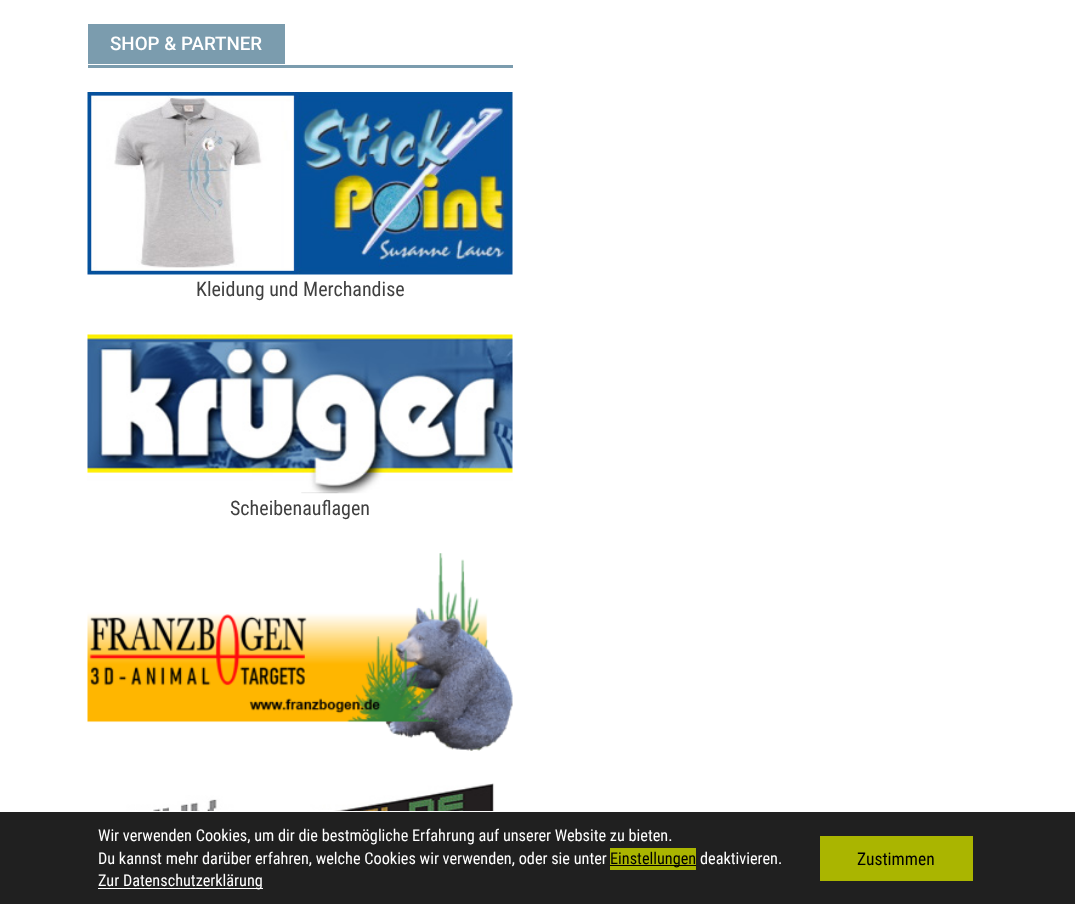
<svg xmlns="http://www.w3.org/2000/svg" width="1075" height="904">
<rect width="100%" height="100%" fill="#fff"/>
<rect x="88" y="65" width="425" height="3" fill="#7b9cae"/>
<rect x="88" y="24" width="197" height="40" fill="#7b9cae"/>
<text x="110" y="50" style="font-family:Roboto;font-size:18.75px;font-weight:500;fill:#fff">SHOP &amp; PARTNER</text>
<image x="87" y="92" width="426" height="183" href="media/1.png"/>
<text x="196" y="296" style="font-family:Roboto Condensed;font-size:20px;fill:#404040">Kleidung und Merchandise</text>
<image x="87" y="334" width="426" height="160" href="media/2.png"/>
<text x="230" y="515" style="font-family:Roboto Condensed;font-size:20px;fill:#404040">Scheibenauflagen</text>
<image x="87" y="553" width="426" height="198" href="media/3.png"/>
<image x="87" y="783" width="426" height="28" href="media/4.png"/>
<rect y="812" width="1075" height="92" fill="#202020"/>
<text x="98" y="841" style="font-family:Roboto Condensed;font-size:16.25px;fill:#fff">Wir verwenden Cookies, um dir die bestmögliche Erfahrung auf unserer Website zu bieten.</text>
<text x="98" y="864" style="font-family:Roboto Condensed;font-size:16.25px;fill:#fff">Du kannst mehr darüber erfahren, welche Cookies wir verwenden, oder sie unter</text>
<rect x="610" y="848" width="86" height="22" fill="#aab500"/>
<rect x="610" y="865" width="86" height="1" fill="#000"/>
<text x="610" y="864" style="font-family:Roboto Condensed;font-size:16.25px;fill:#000">Einstellungen</text>
<text x="700" y="864" style="font-family:Roboto Condensed;font-size:16.25px;fill:#fff">deaktivieren.</text>
<rect x="98" y="888" width="165" height="1" fill="#fff"/>
<text x="98" y="886" style="font-family:Roboto Condensed;font-size:16.25px;fill:#fff">Zur Datenschutzerklärung</text>
<rect x="820" y="836" width="153" height="45" fill="#aab500"/>
<text x="857" y="865" style="font-family:Roboto Condensed;font-size:17.5px;fill:#000">Zustimmen</text>
</svg>
